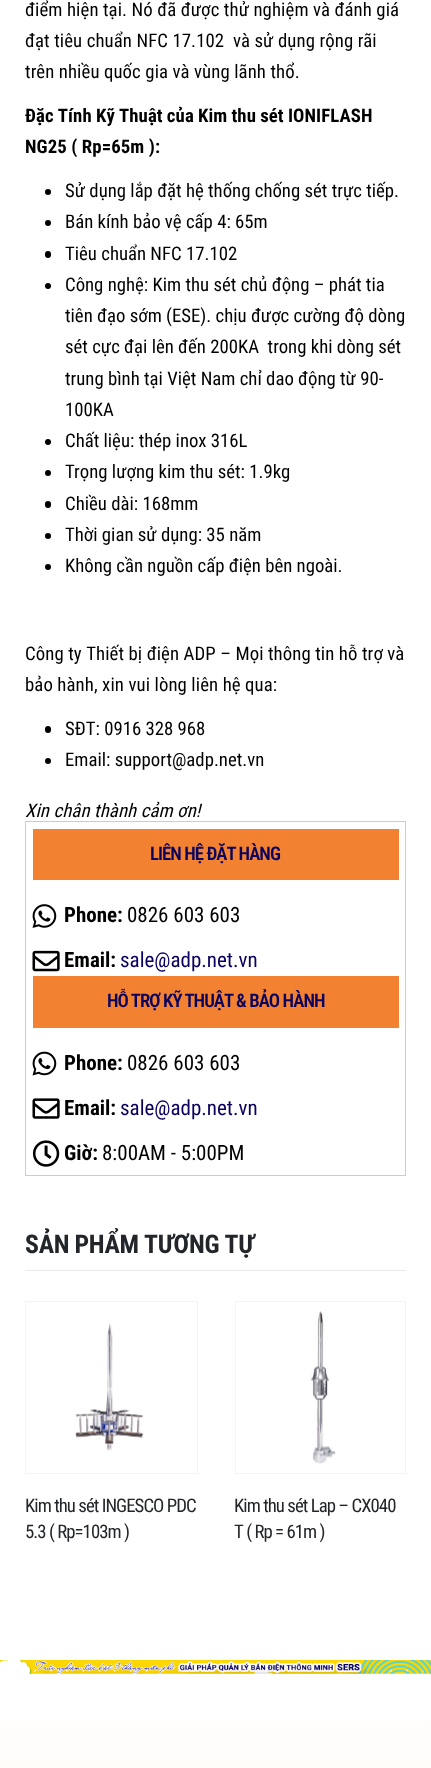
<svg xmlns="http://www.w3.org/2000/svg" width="431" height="1768">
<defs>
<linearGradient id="g1" gradientUnits="userSpaceOnUse" x1="216" y1="1683" x2="216" y2="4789"><stop offset="0" stop-color="#fff"/><stop offset="1" stop-color="#f58232"/></linearGradient>
</defs>
<rect width="100%" height="100%" fill="#fff"/>
<text x="25" y="16" style="font-family:Roboto Condensed;font-size:18.75px;letter-spacing:0.1px;fill:#000">điểm hiện tại. Nó đã được thử nghiệm và đánh giá</text>
<text x="25" y="47" style="font-family:Roboto Condensed;font-size:18.75px;letter-spacing:0.1px;fill:#000" xml:space="preserve">đạt tiêu chuẩn NFC 17.102  và sử dụng rộng rãi</text>
<text x="25" y="78" style="font-family:Roboto Condensed;font-size:18.75px;letter-spacing:0.1px;fill:#000">trên nhiều quốc gia và vùng lãnh thổ.</text>
<text x="25" y="122" word-spacing="-0.25" style="font-family:Roboto Condensed;font-size:18.75px;font-weight:bold;letter-spacing:0.1px;fill:#000">Đặc Tính Kỹ Thuật của Kim thu sét IONIFLASH</text>
<text x="25" y="153" style="font-family:Roboto Condensed;font-size:18.75px;font-weight:bold;letter-spacing:0.1px;fill:#000">NG25 ( Rp=65m ):</text>
<circle cx="48" cy="192" r="3" fill="#000"/>
<text x="65" y="197" style="font-family:Roboto Condensed;font-size:18.75px;fill:#000">Sử dụng lắp đặt hệ thống chống sét trực tiếp.</text>
<circle cx="48" cy="223" r="3" fill="#000"/>
<text x="65" y="228" style="font-family:Roboto Condensed;font-size:18.75px;fill:#000">Bán kính bảo vệ cấp 4: 65m</text>
<rect x="45" y="251" width="6" height="7" rx="3" fill="#000"/>
<text x="65" y="260" style="font-family:Roboto Condensed;font-size:18.75px;fill:#000">Tiêu chuẩn NFC 17.102</text>
<circle cx="48" cy="286" r="3" fill="#000"/>
<text x="65" y="291" style="font-family:Roboto Condensed;font-size:18.75px;fill:#000">Công nghệ: Kim thu sét chủ động – phát tia</text>
<text x="65" y="322" style="font-family:Roboto Condensed;font-size:18.75px;fill:#000">tiên đạo sớm (ESE). chịu được cường độ dòng</text>
<text x="65" y="353" style="font-family:Roboto Condensed;font-size:18.75px;fill:#000" xml:space="preserve">sét cực đại lên đến 200KA  trong khi dòng sét</text>
<text x="65" y="385" style="font-family:Roboto Condensed;font-size:18.75px;fill:#000">trung bình tại Việt Nam chỉ dao động từ 90-</text>
<text x="65" y="416" style="font-family:Roboto Condensed;font-size:18.75px;fill:#000">100KA</text>
<circle cx="48" cy="442" r="3" fill="#000"/>
<text x="65" y="447" style="font-family:Roboto Condensed;font-size:18.75px;fill:#000">Chất liệu: thép inox 316L</text>
<circle cx="48" cy="473" r="3" fill="#000"/>
<text x="65" y="478" style="font-family:Roboto Condensed;font-size:18.75px;fill:#000">Trọng lượng kim thu sét: 1.9kg</text>
<rect x="45" y="501" width="6" height="7" rx="3" fill="#000"/>
<text x="65" y="510" style="font-family:Roboto Condensed;font-size:18.75px;fill:#000">Chiều dài: 168mm</text>
<circle cx="48" cy="536" r="3" fill="#000"/>
<text x="65" y="541" style="font-family:Roboto Condensed;font-size:18.75px;fill:#000">Thời gian sử dụng: 35 năm</text>
<circle cx="48" cy="567" r="3" fill="#000"/>
<text x="65" y="572" style="font-family:Roboto Condensed;font-size:18.75px;fill:#000">Không cần nguồn cấp điện bên ngoài.</text>
<text x="25" y="660" style="font-family:Roboto Condensed;font-size:18.75px;letter-spacing:0.1px;fill:#000">Công ty Thiết bị điện ADP – Mọi thông tin hỗ trợ và</text>
<text x="25" y="691" style="font-family:Roboto Condensed;font-size:18.75px;letter-spacing:0.1px;fill:#000">bảo hành, xin vui lòng liên hệ qua:</text>
<rect x="45" y="726" width="6" height="7" rx="3" fill="#000"/>
<text x="65" y="735" style="font-family:Roboto Condensed;font-size:18.75px;fill:#000">SĐT: 0916 328 968</text>
<circle cx="48" cy="761" r="3" fill="#000"/>
<text x="65" y="766" style="font-family:Roboto Condensed;font-size:18.75px;fill:#000">Email: support@adp.net.vn</text>
<text x="25" y="817" style="font-family:Roboto Condensed;font-size:18.75px;font-style:italic;letter-spacing:0.1px;fill:#000">Xin chân thành cảm ơn!</text>
<rect x="25.5" y="821.5" width="380" height="354" fill="none" stroke="#ccc"/>
<rect x="33" y="829" width="366" height="51" fill="#f28232"/>
<text x="150" y="860" style="font-family:Roboto Condensed;font-size:18.75px;font-weight:600;letter-spacing:-0.95px;fill:#0a005e">LIÊN HỆ ĐẶT HÀNG</text>
<image x="32" y="904" width="25" height="24" href="media/1.png"/>
<text x="64" y="922" style="font-family:Roboto Condensed;font-size:21px;font-weight:bold;fill:#000">Phone:</text>
<text x="127" y="922" style="font-family:Roboto Condensed;font-size:21px;fill:#000">0826 603 603</text>
<image x="32" y="950" width="28" height="22" href="media/2.png"/>
<text x="64" y="967" style="font-family:Roboto Condensed;font-size:21px;font-weight:bold;fill:#000">Email:</text>
<text x="120" y="967" style="font-family:Roboto Condensed;font-size:21px;fill:#0a005e">sale@adp.net.vn</text>
<rect x="33" y="976" width="366" height="52" fill="#f28232"/>
<text x="107" y="1007" style="font-family:Roboto Condensed;font-size:18.75px;font-weight:600;letter-spacing:-0.95px;fill:#0a005e">HỖ TRỢ KỸ THUẬT &amp; BẢO HÀNH</text>
<image x="32" y="1051" width="25" height="25" href="media/3.png"/>
<text x="64" y="1070" style="font-family:Roboto Condensed;font-size:21px;font-weight:bold;fill:#000">Phone:</text>
<text x="127" y="1070" style="font-family:Roboto Condensed;font-size:21px;fill:#000">0826 603 603</text>
<image x="32" y="1098" width="28" height="21" href="media/4.png"/>
<text x="64" y="1115" style="font-family:Roboto Condensed;font-size:21px;font-weight:bold;fill:#000">Email:</text>
<text x="120" y="1115" style="font-family:Roboto Condensed;font-size:21px;fill:#0a005e">sale@adp.net.vn</text>
<image x="32" y="1140" width="28" height="27" href="media/5.png"/>
<text x="64" y="1160" style="font-family:Roboto Condensed;font-size:21px;font-weight:bold;fill:#000">Giờ:</text>
<text x="102" y="1160" style="font-family:Roboto Condensed;font-size:21px;fill:#000">8:00AM - 5:00PM</text>
<rect x="25" y="1270" width="381" height="1" fill="#ebebeb"/>
<text x="25" y="1253" word-spacing="-0.5" style="font-family:Roboto Condensed;font-size:25.75px;font-weight:bold;letter-spacing:-0.25px;fill:#222529">SẢN PHẨM TƯƠNG TỰ</text>
<rect x="25.5" y="1301.5" width="172" height="172" fill="none" stroke="#f4f4f4"/>
<image x="75" y="1322" width="69" height="129" href="media/6.png"/>
<text x="25" y="1512" style="font-family:Roboto Condensed;font-size:18.75px;letter-spacing:-0.95px;fill:#222529">Kim thu sét INGESCO PDC</text>
<text x="25" y="1538" style="font-family:Roboto Condensed;font-size:18.75px;letter-spacing:-0.95px;fill:#222529">5.3 ( Rp=103m )</text>
<rect x="235.5" y="1301.5" width="170" height="172" fill="none" stroke="#f4f4f4"/>
<image x="310" y="1311" width="26" height="153" href="media/7.png"/>
<text x="234" y="1512" style="font-family:Roboto Condensed;font-size:18.75px;letter-spacing:-0.95px;fill:#222529">Kim thu sét Lap – CX040</text>
<text x="234" y="1538" style="font-family:Roboto Condensed;font-size:18.75px;letter-spacing:-0.95px;fill:#222529">T ( Rp = 61m )</text>
<image x="0" y="1660" width="431" height="14" href="media/8.png"/>
<rect y="1721" width="431" height="47" fill="url(#g1)"/>
</svg>
